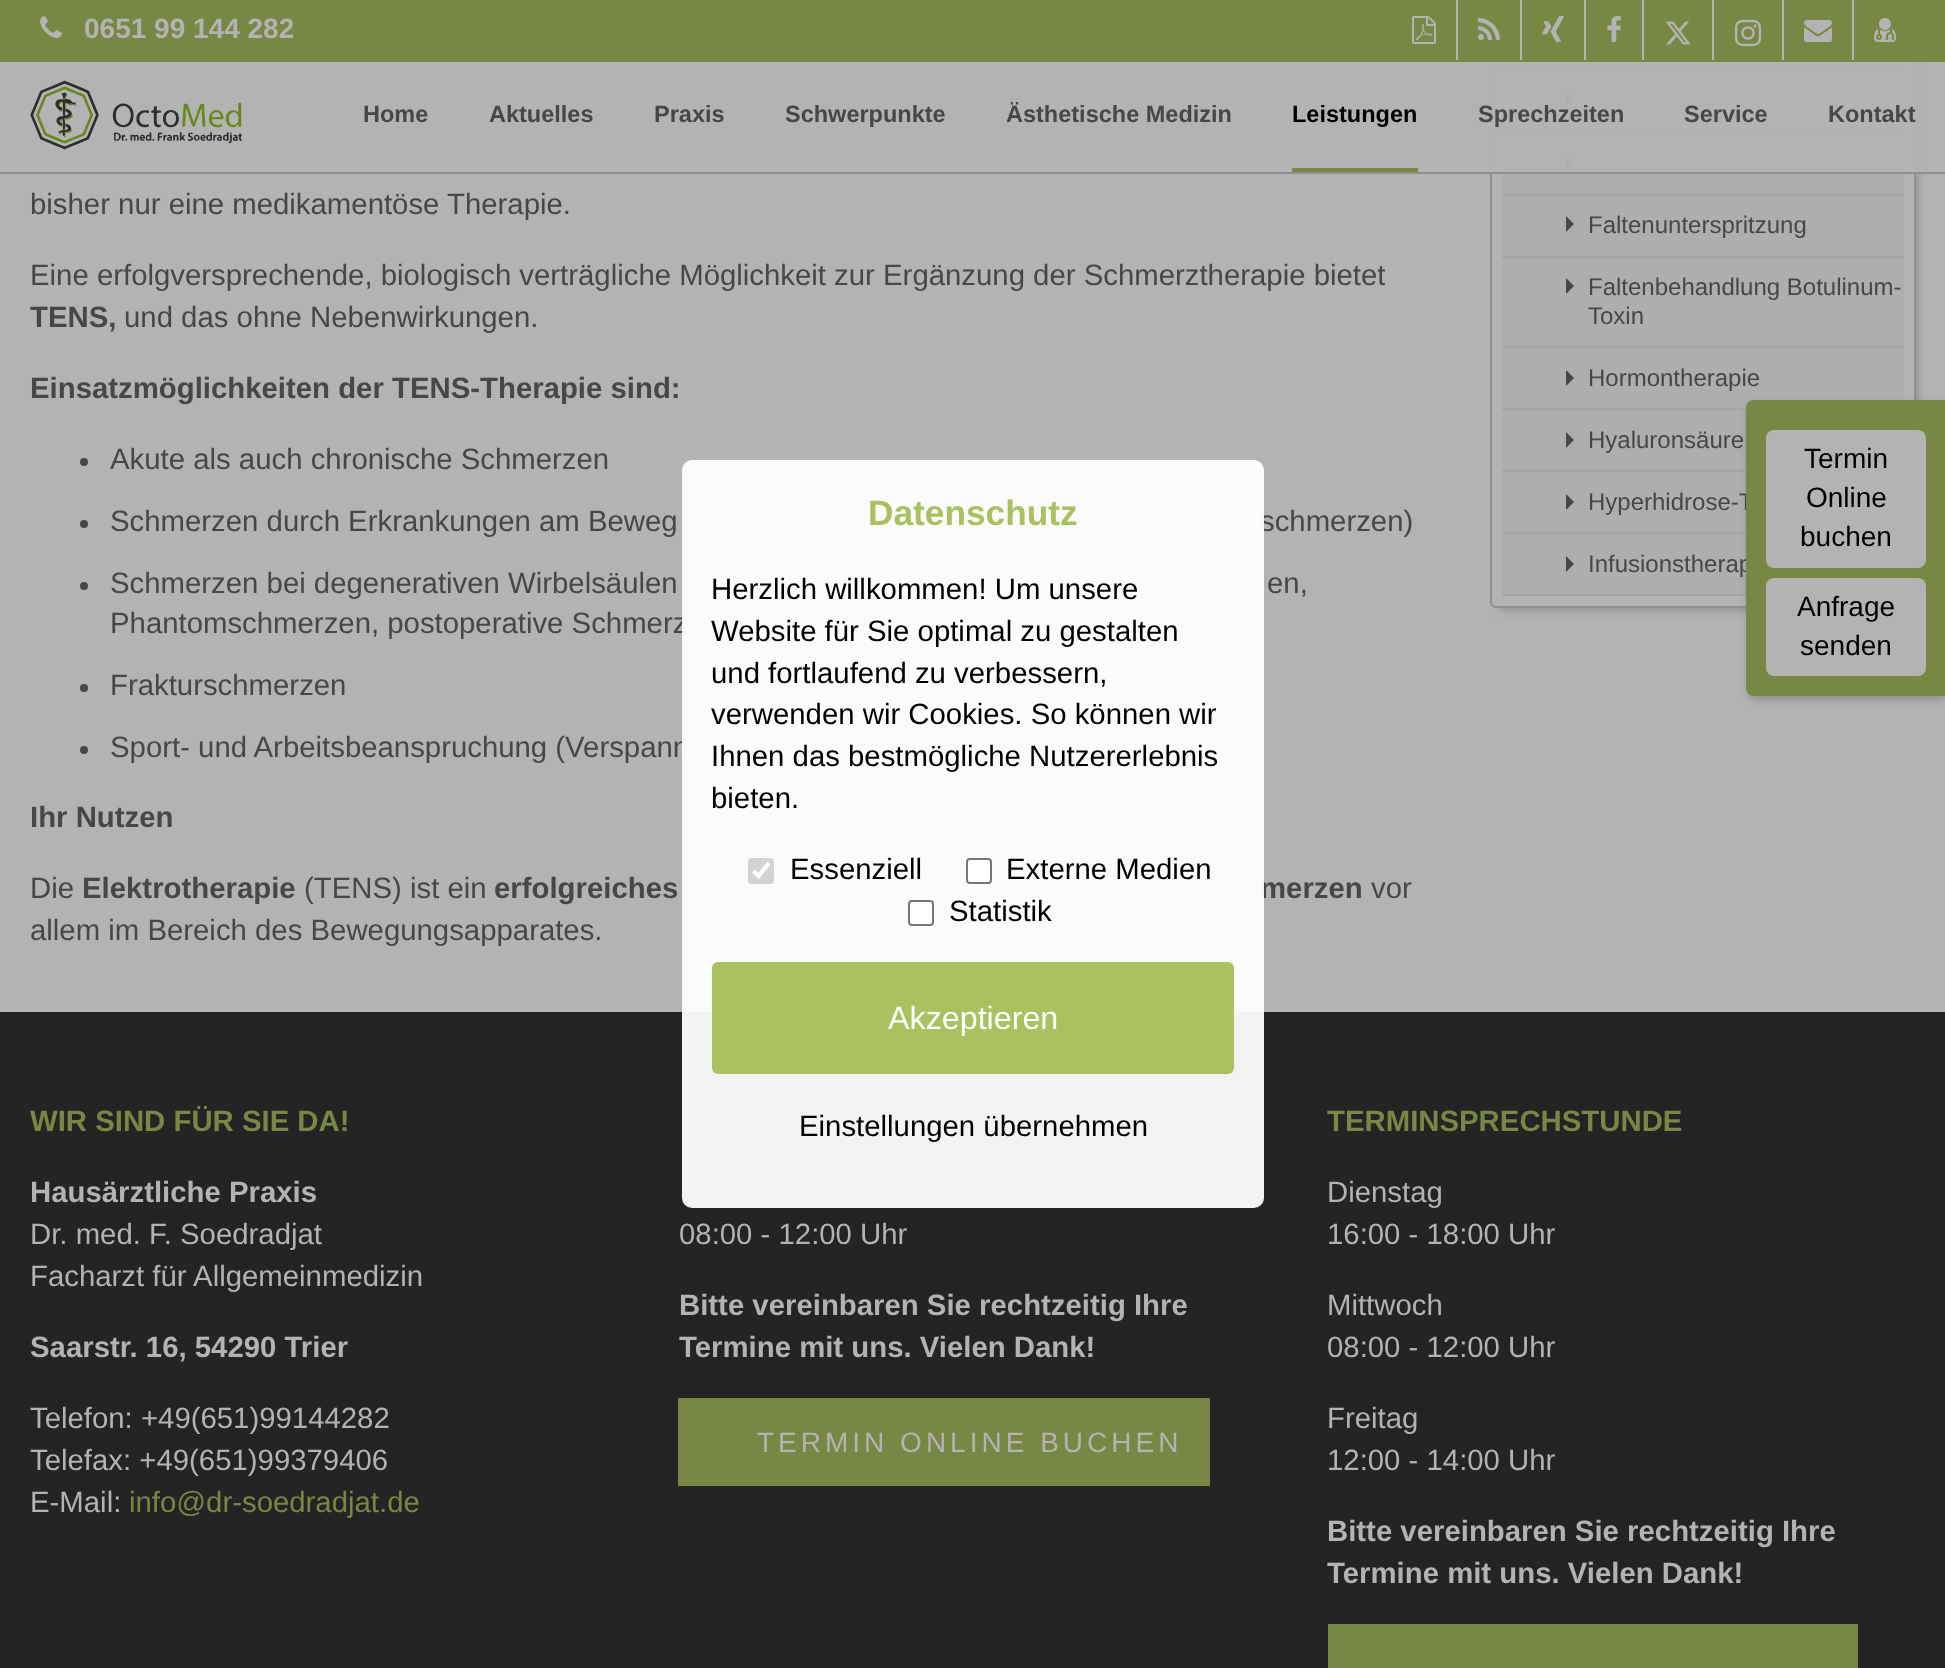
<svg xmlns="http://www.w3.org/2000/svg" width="1945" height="1668">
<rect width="100%" height="100%" fill="#b3b3b3"/>
<rect x="1500" y="-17" width="418" height="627" rx="2" fill="#8f8f8f" filter="blur(5px)"/>
<rect x="1491" y="-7" width="424" height="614" rx="5" fill="#b3b3b3" stroke="#8f8f8f" stroke-width="2"/>
<rect x="1502" y="62" width="402" height="6" fill="#aeaeae"/>
<rect x="1502" y="68" width="402" height="2" fill="#a5a5a5"/>
<rect x="1502" y="70" width="402" height="60" fill="#aeaeae"/>
<rect x="1502" y="130" width="402" height="2" fill="#a5a5a5"/>
<path d="M1566 108v-16l8 8z" fill="#474747"/>
<rect x="1502" y="132" width="402" height="62" fill="#aeaeae"/>
<path d="M1566 170v-16l8 8z" fill="#474747"/>
<rect x="1490" y="62" width="435" height="110" fill="#b3b3b3f7"/>
<rect y="172" width="1945" height="2" fill="#8f8f8f"/>
<rect width="1945" height="62" fill="#788743"/>
<image x="40" y="16" width="22" height="22" href="media/1.png"/>
<text x="84" y="38" style="font-family:Liberation Sans;font-size:28px;font-weight:bold;fill:#b3b3b3">0651 99 144 282</text>
<rect x="1456" width="2" height="60" fill="#b3b3b3"/>
<image x="1412" y="16" width="24" height="28" href="media/2.png"/>
<rect x="1520" width="2" height="60" fill="#b3b3b3"/>
<image x="1478" y="18" width="22" height="22" href="media/3.png"/>
<rect x="1584" width="2" height="60" fill="#b3b3b3"/>
<image x="1542" y="16" width="22" height="26" href="media/4.png"/>
<rect x="1642" width="2" height="60" fill="#b3b3b3"/>
<image x="1607" y="16" width="14" height="26" href="media/5.png"/>
<rect x="1712" width="2" height="60" fill="#b3b3b3"/>
<image x="1665" y="21" width="26" height="24" href="media/6.png"/>
<rect x="1782" width="2" height="60" fill="#b3b3b3"/>
<image x="1734" y="19" width="28" height="28" href="media/7.png"/>
<rect x="1852" width="2" height="60" fill="#b3b3b3"/>
<image x="1804" y="20" width="28" height="22" href="media/8.png"/>
<image x="1874" y="18" width="22" height="24" href="media/9.png"/>
<image x="30" y="80" width="212" height="70" href="media/10.png"/>
<text x="363" y="122" style="font-family:Liberation Sans;font-size:23.5px;font-weight:bold;fill:#474747">Home</text>
<text x="489" y="122" style="font-family:Liberation Sans;font-size:23.5px;font-weight:bold;fill:#474747">Aktuelles</text>
<text x="654" y="122" style="font-family:Liberation Sans;font-size:23.5px;font-weight:bold;fill:#474747">Praxis</text>
<text x="785" y="122" style="font-family:Liberation Sans;font-size:23.5px;font-weight:bold;fill:#474747">Schwerpunkte</text>
<text x="1006" y="122" style="font-family:Liberation Sans;font-size:23.5px;font-weight:bold;fill:#474747">Ästhetische Medizin</text>
<rect x="1292" y="168" width="126" height="4" fill="#788743"/>
<text x="1292" y="122" style="font-family:Liberation Sans;font-size:23.5px;font-weight:bold;fill:#000">Leistungen</text>
<text x="1478" y="122" style="font-family:Liberation Sans;font-size:23.5px;font-weight:bold;fill:#474747">Sprechzeiten</text>
<text x="1684" y="122" style="font-family:Liberation Sans;font-size:23.5px;font-weight:bold;fill:#474747">Service</text>
<text x="1828" y="122" style="font-family:Liberation Sans;font-size:23.5px;font-weight:bold;fill:#474747">Kontakt</text>
<text x="30" y="214" style="font-family:Liberation Sans;font-size:29.35px;fill:#474747">bisher nur eine medikamentöse Therapie.</text>
<text x="30" y="285" style="font-family:Liberation Sans;font-size:29.35px;fill:#474747">Eine erfolgversprechende, biologisch verträgliche Möglichkeit zur Ergänzung der Schmerztherapie bietet</text>
<text x="30" y="327" style="font-family:Liberation Sans;font-size:29.35px;font-weight:bold;fill:#474747">TENS,</text>
<text x="124" y="327" style="font-family:Liberation Sans;font-size:29.35px;fill:#474747">und das ohne Nebenwirkungen.</text>
<text x="30" y="398" style="font-family:Liberation Sans;font-size:29.35px;font-weight:bold;fill:#474747">Einsatzmöglichkeiten der TENS-Therapie sind:</text>
<circle cx="84" cy="462" r="4" fill="#474747"/>
<text x="110" y="469" style="font-family:Liberation Sans;font-size:29.35px;fill:#474747">Akute als auch chronische Schmerzen</text>
<circle cx="84" cy="524" r="4" fill="#474747"/>
<text x="110" y="531" style="font-family:Liberation Sans;font-size:29.35px;fill:#474747">Schmerzen durch Erkrankungen am Beweg</text>
<text x="1260" y="531" style="font-family:Liberation Sans;font-size:29.35px;fill:#474747">schmerzen)</text>
<circle cx="84" cy="586" r="4" fill="#474747"/>
<text x="110" y="593" style="font-family:Liberation Sans;font-size:29.35px;fill:#474747">Schmerzen bei degenerativen Wirbelsäulen</text>
<text x="1267" y="593" style="font-family:Liberation Sans;font-size:29.35px;fill:#474747">en,</text>
<text x="110" y="633" style="font-family:Liberation Sans;font-size:29.35px;fill:#474747">Phantomschmerzen, postoperative Schmerz</text>
<circle cx="84" cy="688" r="4" fill="#474747"/>
<text x="110" y="695" style="font-family:Liberation Sans;font-size:29.35px;fill:#474747">Frakturschmerzen</text>
<circle cx="84" cy="750" r="4" fill="#474747"/>
<text x="110" y="757" style="font-family:Liberation Sans;font-size:29.35px;fill:#474747">Sport- und Arbeitsbeanspruchung (Verspann</text>
<text x="30" y="827" style="font-family:Liberation Sans;font-size:29.35px;font-weight:bold;fill:#474747">Ihr Nutzen</text>
<text x="30" y="898" style="font-family:Liberation Sans;font-size:29.35px;fill:#474747">Die</text>
<text x="82" y="898" style="font-family:Liberation Sans;font-size:29.35px;font-weight:bold;fill:#474747">Elektrotherapie</text>
<text x="304" y="898" style="font-family:Liberation Sans;font-size:29.35px;fill:#474747">(TENS) ist ein</text>
<text x="494" y="898" style="font-family:Liberation Sans;font-size:29.35px;font-weight:bold;fill:#474747">erfolgreiches</text>
<text x="1260" y="898" style="font-family:Liberation Sans;font-size:29.35px;font-weight:bold;fill:#474747">merzen</text>
<text x="1371" y="898" style="font-family:Liberation Sans;font-size:29.35px;fill:#474747">vor</text>
<text x="30" y="940" style="font-family:Liberation Sans;font-size:29.35px;fill:#474747">allem im Bereich des Bewegungsapparates.</text>
<rect x="1502" y="194" width="402" height="2" fill="#a5a5a5"/>
<rect x="1502" y="196" width="402" height="60" fill="#aeaeae"/>
<rect x="1502" y="256" width="402" height="2" fill="#a5a5a5"/>
<path d="M1566 232v-16l8 8z" fill="#474747"/>
<text x="1588" y="233" style="font-family:Liberation Sans;font-size:24px;fill:#474747">Faltenunterspritzung</text>
<rect x="1502" y="258" width="402" height="88" fill="#aeaeae"/>
<rect x="1502" y="346" width="402" height="2" fill="#a5a5a5"/>
<path d="M1566 294v-16l8 8z" fill="#474747"/>
<text x="1588" y="295" style="font-family:Liberation Sans;font-size:24px;fill:#474747">Faltenbehandlung Botulinum-</text>
<text x="1588" y="324" style="font-family:Liberation Sans;font-size:24px;fill:#474747">Toxin</text>
<rect x="1502" y="348" width="402" height="60" fill="#aeaeae"/>
<rect x="1502" y="408" width="244" height="2" fill="#a5a5a5"/>
<path d="M1566 386v-16l8 8z" fill="#474747"/>
<text x="1588" y="386" style="font-family:Liberation Sans;font-size:24px;fill:#474747">Hormontherapie</text>
<rect x="1502" y="410" width="244" height="60" fill="#aeaeae"/>
<rect x="1502" y="470" width="244" height="2" fill="#a5a5a5"/>
<path d="M1566 448v-16l8 8z" fill="#474747"/>
<text x="1588" y="448" style="font-family:Liberation Sans;font-size:24px;fill:#474747">Hyaluronsäure</text>
<rect x="1502" y="472" width="244" height="60" fill="#aeaeae"/>
<rect x="1502" y="532" width="244" height="2" fill="#a5a5a5"/>
<path d="M1566 510v-16l8 8z" fill="#474747"/>
<text x="1588" y="510" style="font-family:Liberation Sans;font-size:24px;fill:#474747">Hyperhidrose-T</text>
<rect x="1502" y="534" width="244" height="60" fill="#aeaeae"/>
<rect x="1502" y="594" width="244" height="2" fill="#a5a5a5"/>
<path d="M1566 572v-16l8 8z" fill="#474747"/>
<text x="1588" y="572" style="font-family:Liberation Sans;font-size:24px;fill:#474747">Infusionstherap</text>
<rect y="1012" width="1945" height="656" fill="#242424"/>
<text x="30" y="1131" style="font-family:Liberation Sans;font-size:29.35px;font-weight:bold;fill:#788743">WIR SIND FÜR SIE DA!</text>
<text x="30" y="1202" style="font-family:Liberation Sans;font-size:29.35px;font-weight:bold;fill:#b3b3b3">Hausärztliche Praxis</text>
<text x="30" y="1244" style="font-family:Liberation Sans;font-size:29.35px;fill:#b3b3b3">Dr. med. F. Soedradjat</text>
<text x="30" y="1286" style="font-family:Liberation Sans;font-size:29.35px;fill:#b3b3b3">Facharzt für Allgemeinmedizin</text>
<text x="30" y="1357" style="font-family:Liberation Sans;font-size:29.35px;font-weight:bold;fill:#b3b3b3">Saarstr. 16, 54290 Trier</text>
<text x="30" y="1428" style="font-family:Liberation Sans;font-size:29.35px;fill:#b3b3b3">Telefon: +49(651)99144282</text>
<text x="30" y="1470" style="font-family:Liberation Sans;font-size:29.35px;fill:#b3b3b3">Telefax: +49(651)99379406</text>
<text x="30" y="1512" style="font-family:Liberation Sans;font-size:29.35px;fill:#b3b3b3">E-Mail:</text>
<text x="129" y="1512" style="font-family:Liberation Sans;font-size:29.35px;fill:#788743">info@dr-soedradjat.de</text>
<text x="679" y="1244" style="font-family:Liberation Sans;font-size:29.35px;fill:#b3b3b3">08:00 - 12:00 Uhr</text>
<text x="679" y="1315" style="font-family:Liberation Sans;font-size:29.35px;font-weight:bold;fill:#b3b3b3">Bitte vereinbaren Sie rechtzeitig Ihre</text>
<text x="679" y="1357" style="font-family:Liberation Sans;font-size:29.35px;font-weight:bold;fill:#b3b3b3">Termine mit uns. Vielen Dank!</text>
<rect x="678" y="1398" width="532" height="88" fill="#788743"/>
<text x="757" y="1452" style="font-family:Liberation Sans;font-size:28px;letter-spacing:4px;fill:#b3b3b3">TERMIN ONLINE BUCHEN</text>
<rect x="1748" y="404" width="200" height="296" rx="8" fill="#00000033" filter="blur(4px)"/>
<path d="M1754 400h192v296h-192c-4.5 0-8-3.5-8-8v-280c0-4.5 3.5-8 8-8z" fill="#788743"/>
<rect x="1766" y="430" width="160" height="138" rx="8" fill="#b3b3b3"/>
<text x="1804" y="468" style="font-family:Liberation Sans;font-size:28px;fill:#000">Termin</text>
<text x="1806" y="507" style="font-family:Liberation Sans;font-size:28px;fill:#000">Online</text>
<text x="1800" y="546" style="font-family:Liberation Sans;font-size:28px;fill:#000">buchen</text>
<rect x="1766" y="578" width="160" height="98" rx="8" fill="#b3b3b3"/>
<text x="1797" y="616" style="font-family:Liberation Sans;font-size:28px;fill:#000">Anfrage</text>
<text x="1800" y="655" style="font-family:Liberation Sans;font-size:28px;fill:#000">senden</text>
<text x="1327" y="1131" style="font-family:Liberation Sans;font-size:29.35px;font-weight:bold;fill:#788743">TERMINSPRECHSTUNDE</text>
<text x="1327" y="1202" style="font-family:Liberation Sans;font-size:29.35px;fill:#b3b3b3">Dienstag</text>
<text x="1327" y="1244" style="font-family:Liberation Sans;font-size:29.35px;fill:#b3b3b3">16:00 - 18:00 Uhr</text>
<text x="1327" y="1315" style="font-family:Liberation Sans;font-size:29.35px;fill:#b3b3b3">Mittwoch</text>
<text x="1327" y="1357" style="font-family:Liberation Sans;font-size:29.35px;fill:#b3b3b3">08:00 - 12:00 Uhr</text>
<text x="1327" y="1428" style="font-family:Liberation Sans;font-size:29.35px;fill:#b3b3b3">Freitag</text>
<text x="1327" y="1470" style="font-family:Liberation Sans;font-size:29.35px;fill:#b3b3b3">12:00 - 14:00 Uhr</text>
<text x="1327" y="1541" style="font-family:Liberation Sans;font-size:29.35px;font-weight:bold;fill:#b3b3b3">Bitte vereinbaren Sie rechtzeitig Ihre</text>
<text x="1327" y="1583" style="font-family:Liberation Sans;font-size:29.35px;font-weight:bold;fill:#b3b3b3">Termine mit uns. Vielen Dank!</text>
<rect x="1328" y="1624" width="530" height="44" fill="#788743"/>
<rect x="682" y="460" width="582" height="748" rx="10" fill="#fffffff2"/>
<text x="868" y="525" style="font-family:Liberation Sans;font-size:35.25px;font-weight:bold;fill:#abc15f">Datenschutz</text>
<text x="711" y="599" style="font-family:Liberation Sans;font-size:29.35px;fill:#000">Herzlich willkommen! Um unsere</text>
<text x="711" y="641" style="font-family:Liberation Sans;font-size:29.35px;fill:#000">Website für Sie optimal zu gestalten</text>
<text x="711" y="683" style="font-family:Liberation Sans;font-size:29.35px;fill:#000">und fortlaufend zu verbessern,</text>
<text x="711" y="724" style="font-family:Liberation Sans;font-size:29.35px;fill:#000">verwenden wir Cookies. So können wir</text>
<text x="711" y="766" style="font-family:Liberation Sans;font-size:29.35px;fill:#000">Ihnen das bestmögliche Nutzererlebnis</text>
<text x="711" y="808" style="font-family:Liberation Sans;font-size:29.35px;fill:#000">bieten.</text>
<rect x="748" y="858" width="26" height="26" rx="4" fill="#7676764d"/>
<path d="M753.5 871l5 5l10.5-13" fill="none" stroke="#fff" stroke-width="4.2"/>
<text x="790" y="879" style="font-family:Liberation Sans;font-size:29.35px;fill:#000">Essenziell</text>
<rect x="967" y="859" width="24" height="24" rx="3" fill="#fff" stroke="#767676" stroke-width="2"/>
<text x="1006" y="879" style="font-family:Liberation Sans;font-size:29.35px;fill:#000">Externe Medien</text>
<rect x="909" y="901" width="24" height="24" rx="3" fill="#fff" stroke="#767676" stroke-width="2"/>
<text x="949" y="921" style="font-family:Liberation Sans;font-size:29.35px;fill:#000">Statistik</text>
<rect x="712" y="962" width="522" height="112" rx="6" fill="#abc15f"/>
<text x="888" y="1029" style="font-family:Liberation Sans;font-size:32.25px;fill:#fff">Akzeptieren</text>
<text x="799" y="1136" style="font-family:Liberation Sans;font-size:29.35px;fill:#000">Einstellungen übernehmen</text>
</svg>
